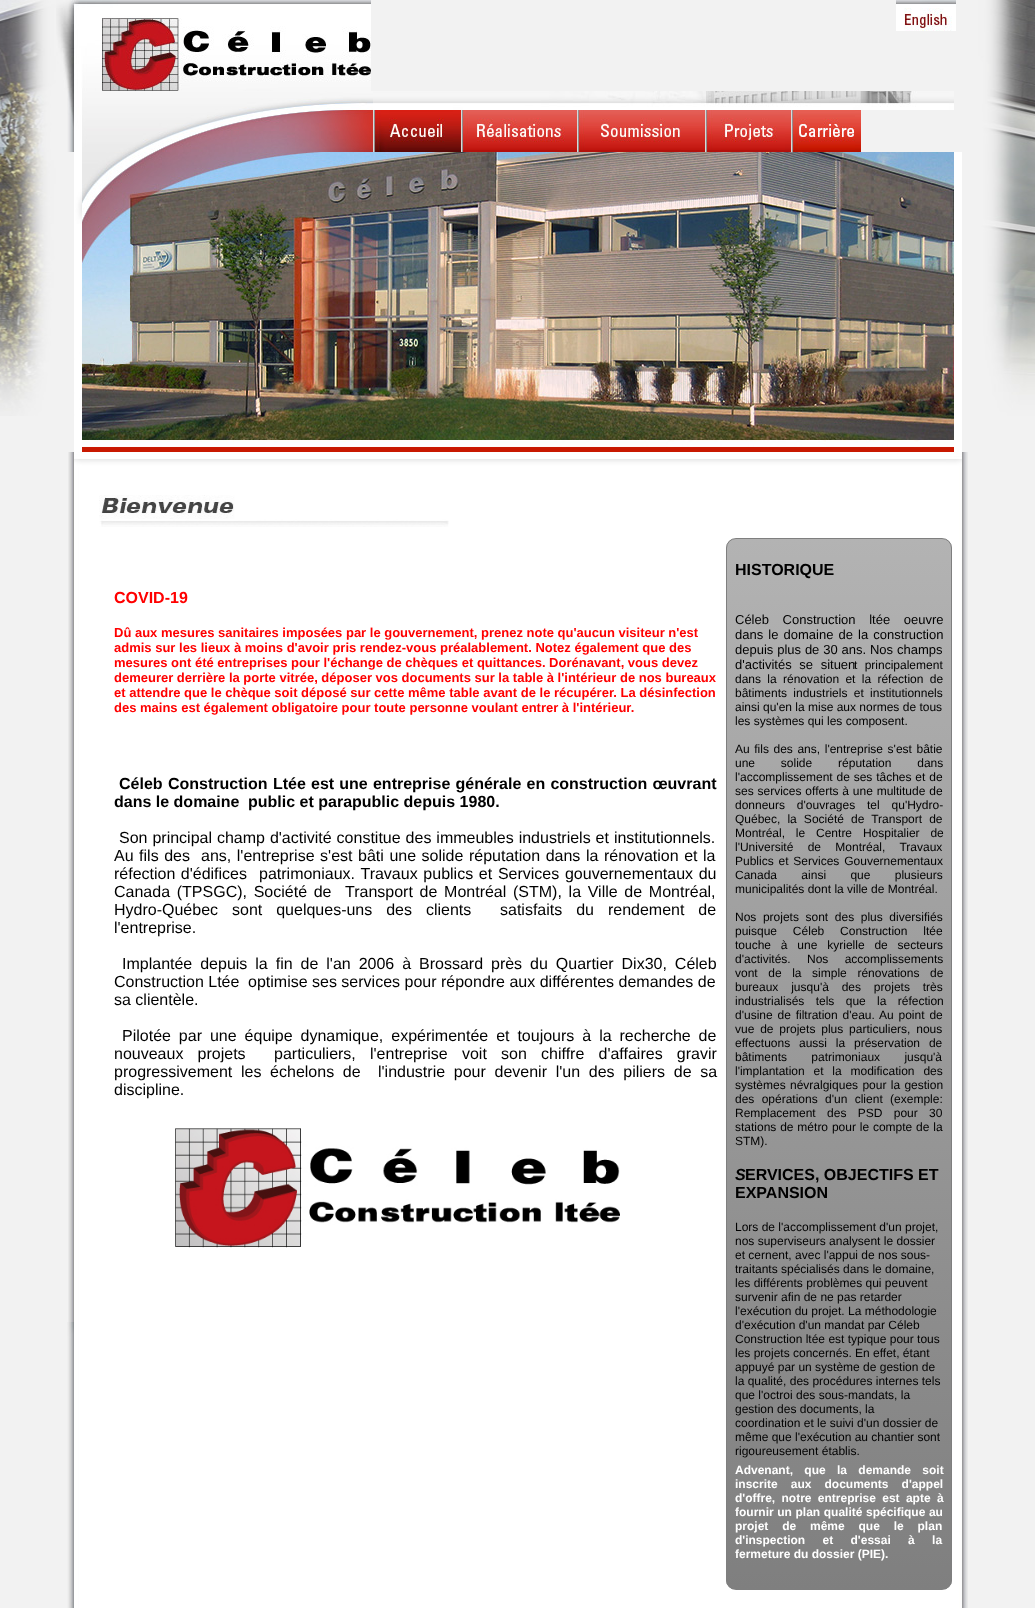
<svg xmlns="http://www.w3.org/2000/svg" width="1035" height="1608">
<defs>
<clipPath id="clip1"><rect x="726" y="538" width="226" height="1052" rx="10"/></clipPath>
<linearGradient id="g1" gradientUnits="userSpaceOnUse" x1="839" y1="539" x2="839" y2="1589"><stop offset="0" stop-color="#b3b3b3"/><stop offset="1" stop-color="#7f7f7f"/></linearGradient>
</defs>
<rect width="100%" height="100%" fill="#f2f2f2"/>
<image x="0" y="0" width="1035" height="416" href="media/1.png"/>
<image x="56" y="0" width="46" height="91" href="media/2.png"/>
<image x="102" y="0" width="269" height="18" href="media/3.png"/>
<image x="102" y="18" width="269" height="73" href="media/4.png"/>
<image x="896" y="0" width="60" height="8" href="media/5.png"/>
<image x="896" y="8" width="60" height="23" href="media/6.png"/>
<image x="67" y="91" width="306" height="61" href="media/7.png"/>
<image x="373" y="91" width="581" height="19" href="media/8.png"/>
<image x="373" y="110" width="88" height="42" href="media/9.png"/>
<image x="461" y="110" width="116" height="42" href="media/10.png"/>
<image x="577" y="110" width="128" height="42" href="media/11.png"/>
<image x="705" y="110" width="86" height="42" href="media/12.png"/>
<image x="791" y="110" width="70" height="42" href="media/13.png"/>
<image x="74" y="152" width="888" height="300" href="media/14.png"/>
<image x="68" y="452" width="900" height="1156" href="media/15.png"/>
<image x="67" y="1322" width="7" height="286" href="media/16.png"/>
<image x="74" y="452" width="888" height="15" href="media/17.png"/>
<rect x="74" y="467" width="4" height="1141" fill="#fff"/>
<image x="99" y="495" width="350" height="32" href="media/18.png"/>
<text x="114" y="603" style="font-family:Liberation Sans;font-size:16px;font-weight:bold;fill:#f00">COVID-19</text>
<text x="114" y="637" style="font-family:Liberation Sans;font-size:13px;font-weight:bold;fill:#f00">Dû aux mesures sanitaires imposées par le gouvernement, prenez note qu'aucun visiteur n'est</text>
<text x="114" y="652" style="font-family:Liberation Sans;font-size:13px;font-weight:bold;fill:#f00">admis sur les lieux à moins d'avoir pris rendez-vous préalablement. Notez également que des</text>
<text x="114" y="667" style="font-family:Liberation Sans;font-size:13px;font-weight:bold;fill:#f00">mesures ont été entreprises pour l'échange de chèques et quittances. Dorénavant, vous devez</text>
<text x="114" y="682" style="font-family:Liberation Sans;font-size:13px;font-weight:bold;fill:#f00">demeurer derrière la porte vitrée, déposer vos documents sur la table à l'intérieur de nos bureaux</text>
<text x="114" y="697" style="font-family:Liberation Sans;font-size:13px;font-weight:bold;fill:#f00">et attendre que le chèque soit déposé sur cette même table avant de le récupérer. La désinfection</text>
<text x="114" y="712" style="font-family:Liberation Sans;font-size:13px;font-weight:bold;fill:#f00">des mains est également obligatoire pour toute personne voulant entrer à l'intérieur.</text>
<text x="119" y="789" word-spacing="1" style="font-family:Liberation Sans;font-size:16px;font-weight:bold;fill:#000">Céleb Construction Ltée</text>
<text x="311" y="789" word-spacing="0.75" style="font-family:Liberation Sans;font-size:16px;font-weight:bold;fill:#000">est une entreprise générale en construction œuvrant</text>
<text x="114" y="807" style="font-family:Liberation Sans;font-size:16px;font-weight:bold;fill:#000">dans le domaine</text>
<text x="248" y="807" style="font-family:Liberation Sans;font-size:16px;font-weight:bold;fill:#000">public et parapublic depuis 1980.</text>
<text x="119" y="843" word-spacing="0.5" style="font-family:Liberation Sans;font-size:16px;fill:#000">Son principal champ d'activité constitue des immeubles industriels et institutionnels.</text>
<text x="114" y="861" word-spacing="1.1" style="font-family:Liberation Sans;font-size:16px;fill:#000">Au fils des</text>
<text x="201" y="861" word-spacing="1.1" style="font-family:Liberation Sans;font-size:16px;fill:#000">ans, l'entreprise s'est bâti une solide réputation dans la rénovation et la</text>
<text x="114" y="879" word-spacing="1" style="font-family:Liberation Sans;font-size:16px;fill:#000">réfection d'édifices</text>
<text x="259" y="879" word-spacing="1.25" style="font-family:Liberation Sans;font-size:16px;fill:#000">patrimoniaux. Travaux publics et Services gouvernementaux du</text>
<text x="114" y="897" word-spacing="2.25" style="font-family:Liberation Sans;font-size:16px;fill:#000">Canada (TPSGC), Société de</text>
<text x="345" y="897" word-spacing="2.25" style="font-family:Liberation Sans;font-size:16px;fill:#000">Transport de Montréal (STM), la Ville de Montréal,</text>
<text x="114" y="915" word-spacing="9.5" style="font-family:Liberation Sans;font-size:16px;fill:#000">Hydro-Québec sont quelques-uns des clients</text>
<text x="500" y="915" word-spacing="9.5" style="font-family:Liberation Sans;font-size:16px;fill:#000">satisfaits du rendement de</text>
<text x="114" y="933" style="font-family:Liberation Sans;font-size:16px;fill:#000">l'entreprise.</text>
<text x="122" y="969" word-spacing="3.5" style="font-family:Liberation Sans;font-size:16px;fill:#000">Implantée depuis la fin de l'an 2006 à Brossard près du Quartier Dix30, Céleb</text>
<text x="114" y="987" style="font-family:Liberation Sans;font-size:16px;fill:#000">Construction Ltée</text>
<text x="248" y="987" style="font-family:Liberation Sans;font-size:16px;fill:#000">optimise ses services pour répondre aux différentes demandes de</text>
<text x="114" y="1005" style="font-family:Liberation Sans;font-size:16px;fill:#000">sa clientèle.</text>
<text x="122" y="1041" word-spacing="3.5" style="font-family:Liberation Sans;font-size:16px;fill:#000">Pilotée par une équipe dynamique, expérimentée et toujours à la recherche de</text>
<text x="114" y="1059" word-spacing="9.75" style="font-family:Liberation Sans;font-size:16px;fill:#000">nouveaux projets</text>
<text x="274" y="1059" word-spacing="9.75" style="font-family:Liberation Sans;font-size:16px;fill:#000">particuliers, l'entreprise voit son chiffre d'affaires gravir</text>
<text x="114" y="1077" word-spacing="4.25" style="font-family:Liberation Sans;font-size:16px;fill:#000">progressivement les échelons de</text>
<text x="378" y="1077" word-spacing="4.25" style="font-family:Liberation Sans;font-size:16px;fill:#000">l'industrie pour devenir l'un des piliers de sa</text>
<text x="114" y="1095" style="font-family:Liberation Sans;font-size:16px;fill:#000">discipline.</text>
<image x="175" y="1128" width="445" height="120" href="media/19.png"/>
<g clip-path="url(#clip1)">
<rect x="726" y="539" width="226" height="1050" fill="url(#g1)"/>
</g>
<rect x="726.5" y="538.5" width="225" height="1051" rx="9.5" fill="none" stroke="#7f7f7f"/>
<text x="735" y="575" style="font-family:Liberation Sans;font-size:16px;font-weight:bold;fill:#000">HISTORIQUE</text>
<text x="735" y="624" word-spacing="10" style="font-family:Liberation Sans;font-size:13px;fill:#000">Céleb Construction ltée oeuvre</text>
<text x="735" y="639" word-spacing="1.5" style="font-family:Liberation Sans;font-size:13px;fill:#000">dans le domaine de la construction</text>
<text x="735" y="654" word-spacing="0.25" style="font-family:Liberation Sans;font-size:13px;fill:#000">depuis plus de 30 ans. Nos champs</text>
<text x="735" y="669" word-spacing="4" style="font-family:Liberation Sans;font-size:13px;fill:#000">d'activités se situen</text>
<text x="854" y="669" word-spacing="4" style="font-family:Liberation Sans;font-size:12px;fill:#000">t principalement</text>
<text x="735" y="683" word-spacing="3" style="font-family:Liberation Sans;font-size:12px;fill:#000">dans la rénovation et la réfection de</text>
<text x="735" y="697" word-spacing="3" style="font-family:Liberation Sans;font-size:12px;fill:#000">bâtiments industriels et institutionnels</text>
<text x="735" y="711" style="font-family:Liberation Sans;font-size:12px;fill:#000">ainsi qu'en la mise aux normes de tous</text>
<text x="735" y="725" style="font-family:Liberation Sans;font-size:12px;fill:#000">les systèmes qui les composent.</text>
<text x="735" y="753" word-spacing="1.25" style="font-family:Liberation Sans;font-size:12px;fill:#000">Au fils des ans, l'entreprise s'est bâtie</text>
<text x="735" y="767" word-spacing="22.5" style="font-family:Liberation Sans;font-size:12px;fill:#000">une solide réputation dans</text>
<text x="735" y="781" word-spacing="0.5" style="font-family:Liberation Sans;font-size:12px;fill:#000">l'accomplissement de ses tâches et de</text>
<text x="735" y="795" word-spacing="0.5" style="font-family:Liberation Sans;font-size:12px;fill:#000">ses services offerts à une multitude de</text>
<text x="735" y="809" word-spacing="8.5" style="font-family:Liberation Sans;font-size:12px;fill:#000">donneurs d'ouvrages tel qu'Hydro-</text>
<text x="735" y="823" word-spacing="3.75" style="font-family:Liberation Sans;font-size:12px;fill:#000">Québec, la Société de Transport de</text>
<text x="735" y="837" word-spacing="7.5" style="font-family:Liberation Sans;font-size:12px;fill:#000">Montréal, le Centre Hospitalier de</text>
<text x="735" y="851" word-spacing="11" style="font-family:Liberation Sans;font-size:12px;fill:#000">l'Université de Montréal, Travaux</text>
<text x="735" y="865" word-spacing="1.5" style="font-family:Liberation Sans;font-size:12px;fill:#000">Publics et Services Gouvernementaux</text>
<text x="735" y="879" word-spacing="21" style="font-family:Liberation Sans;font-size:12px;fill:#000">Canada ainsi que plusieurs</text>
<text x="735" y="893" style="font-family:Liberation Sans;font-size:12px;fill:#000">municipalités dont la ville de Montréal.</text>
<text x="735" y="921" word-spacing="3.25" style="font-family:Liberation Sans;font-size:12px;fill:#000">Nos projets sont des plus diversifiés</text>
<text x="735" y="935" word-spacing="12.5" style="font-family:Liberation Sans;font-size:12px;fill:#000">puisque Céleb Construction ltée</text>
<text x="735" y="949" word-spacing="6.5" style="font-family:Liberation Sans;font-size:12px;fill:#000">touche à une kyrielle de secteurs</text>
<text x="735" y="963" word-spacing="13" style="font-family:Liberation Sans;font-size:12px;fill:#000">d'activités. Nos accomplissements</text>
<text x="735" y="977" word-spacing="7.25" style="font-family:Liberation Sans;font-size:12px;fill:#000">vont de la simple rénovations de</text>
<text x="735" y="991" word-spacing="9.5" style="font-family:Liberation Sans;font-size:12px;fill:#000">bureaux jusqu'à des projets très</text>
<text x="735" y="1005" word-spacing="8" style="font-family:Liberation Sans;font-size:12px;fill:#000">industrialisés tels que la réfection</text>
<text x="735" y="1019" word-spacing="1.5" style="font-family:Liberation Sans;font-size:12px;fill:#000">d'usine de filtration d'eau. Au point de</text>
<text x="735" y="1033" word-spacing="2.5" style="font-family:Liberation Sans;font-size:12px;fill:#000">vue de projets plus particuliers, nous</text>
<text x="735" y="1047" word-spacing="5.5" style="font-family:Liberation Sans;font-size:12px;fill:#000">effectuons aussi la préservation de</text>
<text x="735" y="1061" word-spacing="21" style="font-family:Liberation Sans;font-size:12px;fill:#000">bâtiments patrimoniaux jusqu'à</text>
<text x="735" y="1075" word-spacing="5.5" style="font-family:Liberation Sans;font-size:12px;fill:#000">l'implantation et la modification des</text>
<text x="735" y="1089" word-spacing="1" style="font-family:Liberation Sans;font-size:12px;fill:#000">systèmes névralgiques pour la gestion</text>
<text x="735" y="1103" word-spacing="4" style="font-family:Liberation Sans;font-size:12px;fill:#000">des opérations d'un client (exemple:</text>
<text x="735" y="1117" word-spacing="8" style="font-family:Liberation Sans;font-size:12px;fill:#000">Remplacement des PSD pour 30</text>
<text x="735" y="1131" word-spacing="0.5" style="font-family:Liberation Sans;font-size:12px;fill:#000">stations de métro pour le compte de la</text>
<text x="735" y="1145" style="font-family:Liberation Sans;font-size:12px;fill:#000">STM).</text>
<text x="735" y="1180" style="font-family:Liberation Sans;font-size:16px;font-weight:bold;font-style:italic;fill:#000">S</text>
<text x="745" y="1180" style="font-family:Liberation Sans;font-size:16px;font-weight:bold;fill:#000">ERVICES, OBJECTIFS ET</text>
<text x="735" y="1198" style="font-family:Liberation Sans;font-size:16px;font-weight:bold;fill:#000">EXPANSION</text>
<text x="735" y="1231" style="font-family:Liberation Sans;font-size:12px;fill:#000">Lors de l'accomplissement d'un projet,</text>
<text x="735" y="1245" style="font-family:Liberation Sans;font-size:12px;fill:#000">nos superviseurs analysent le dossier</text>
<text x="735" y="1259" style="font-family:Liberation Sans;font-size:12px;fill:#000">et cernent, avec l'appui de nos sous-</text>
<text x="735" y="1273" style="font-family:Liberation Sans;font-size:12px;fill:#000">traitants spécialisés dans le domaine,</text>
<text x="735" y="1287" style="font-family:Liberation Sans;font-size:12px;fill:#000">les différents problèmes qui peuvent</text>
<text x="735" y="1301" style="font-family:Liberation Sans;font-size:12px;fill:#000">survenir afin de ne pas retarder</text>
<text x="735" y="1315" style="font-family:Liberation Sans;font-size:12px;fill:#000">l'exécution du projet. La méthodologie</text>
<text x="735" y="1329" style="font-family:Liberation Sans;font-size:12px;fill:#000">d'exécution d'un mandat par Céleb</text>
<text x="735" y="1343" style="font-family:Liberation Sans;font-size:12px;fill:#000">Construction ltée est typique pour tous</text>
<text x="735" y="1357" style="font-family:Liberation Sans;font-size:12px;fill:#000">les projets concernés. En effet, étant</text>
<text x="735" y="1371" style="font-family:Liberation Sans;font-size:12px;fill:#000">appuyé par un système de gestion de</text>
<text x="735" y="1385" style="font-family:Liberation Sans;font-size:12px;fill:#000">la qualité, des procédures internes tels</text>
<text x="735" y="1399" style="font-family:Liberation Sans;font-size:12px;fill:#000">que l'octroi des sous-mandats, la</text>
<text x="735" y="1413" style="font-family:Liberation Sans;font-size:12px;fill:#000">gestion des documents, la</text>
<text x="735" y="1427" style="font-family:Liberation Sans;font-size:12px;fill:#000">coordination et le suivi d'un dossier de</text>
<text x="735" y="1441" style="font-family:Liberation Sans;font-size:12px;fill:#000">même que l'exécution au chantier sont</text>
<text x="735" y="1455" style="font-family:Liberation Sans;font-size:12px;fill:#000">rigoureusement établis.</text>
<text x="735" y="1474" word-spacing="8" style="font-family:Liberation Sans;font-size:12px;font-weight:bold;fill:#fff">Advenant, que la demande soit</text>
<text x="735" y="1488" word-spacing="9.75" style="font-family:Liberation Sans;font-size:12px;font-weight:bold;fill:#fff">inscrite aux documents d'appel</text>
<text x="735" y="1502" word-spacing="3" style="font-family:Liberation Sans;font-size:12px;font-weight:bold;fill:#fff">d'offre, notre entreprise est apte à</text>
<text x="735" y="1516" word-spacing="0.25" style="font-family:Liberation Sans;font-size:12px;font-weight:bold;fill:#fff">fournir un plan qualité spécifique au</text>
<text x="735" y="1530" word-spacing="10.5" style="font-family:Liberation Sans;font-size:12px;font-weight:bold;fill:#fff">projet de même que le plan</text>
<text x="735" y="1544" word-spacing="14" style="font-family:Liberation Sans;font-size:12px;font-weight:bold;fill:#fff">d'inspection et d'essai à la</text>
<text x="735" y="1558" style="font-family:Liberation Sans;font-size:12px;font-weight:bold;fill:#fff">fermeture du dossier (PIE).</text>
</svg>
